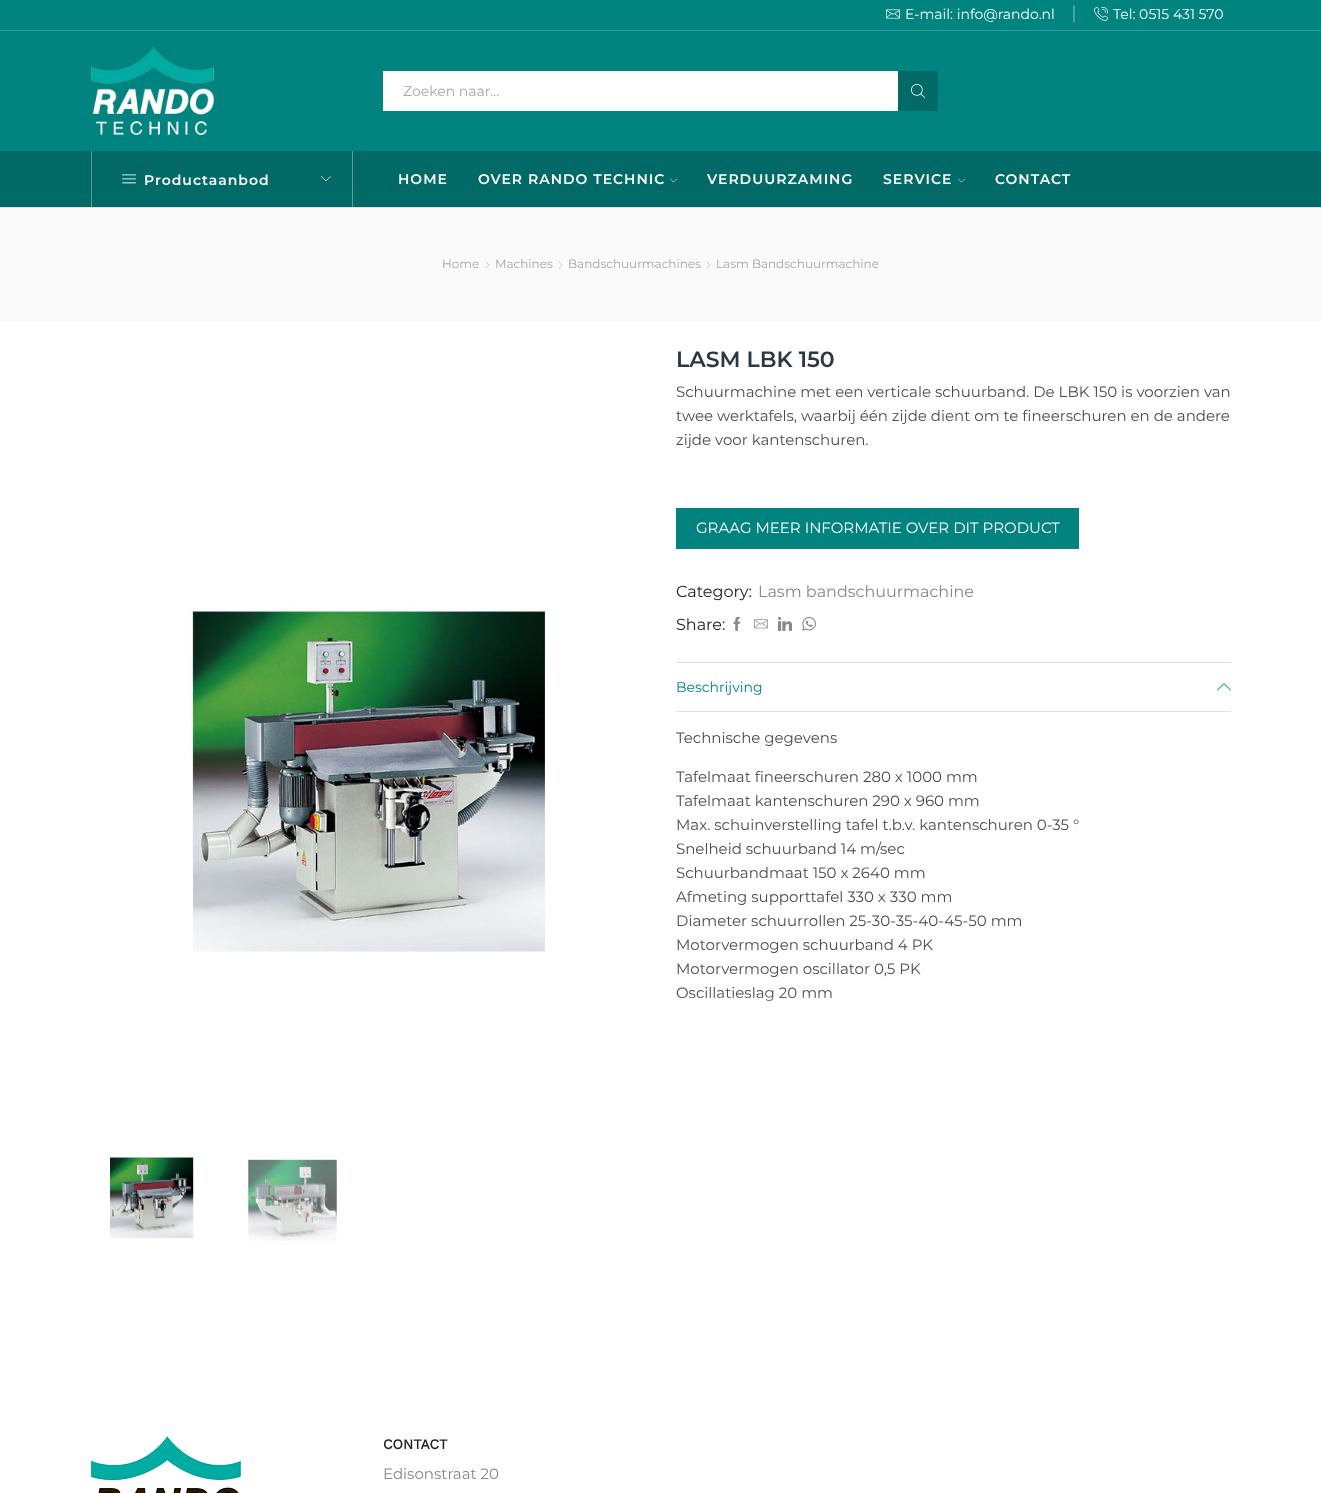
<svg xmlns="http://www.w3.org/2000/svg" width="1321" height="1493">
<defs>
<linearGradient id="g1" gradientUnits="userSpaceOnUse" x1="954" y1="995" x2="954" y2="1025"><stop offset="0" stop-color="#fff" stop-opacity="0"/><stop offset="0.8" stop-color="#fff"/></linearGradient>
</defs>
<rect width="100%" height="100%" fill="#fff"/>
<rect width="1321" height="30" fill="#01837f"/>
<rect y="30" width="1321" height="1" fill="#349c99"/>
<image x="886" y="9" width="14" height="10" href="media/1.png"/>
<text x="905" y="19" style="font-family:Montserrat;font-size:14px;font-weight:100;fill:#fff">E-mail: info@rando.nl</text>
<text x="1069" y="18" style="font-family:Liberation Serif;font-size:14px;fill:#80c1bf">│</text>
<image x="1094" y="7" width="14" height="14" href="media/2.png"/>
<text x="1113" y="19" style="font-family:Montserrat;font-size:14px;font-weight:100;fill:#fff">Tel: 0515 431 570</text>
<rect y="31" width="1321" height="120" fill="#01837f"/>
<image x="91" y="47" width="123" height="88" href="media/3.png"/>
<rect x="383" y="71" width="515" height="40" fill="#fff"/>
<text x="403" y="96" style="font-family:Montserrat;font-size:14px;font-weight:100;fill:#a6a6a6">Zoeken naar...</text>
<rect x="898" y="71" width="40" height="40" fill="#016966"/>
<image x="911" y="84" width="14" height="14" href="media/4.png"/>
<rect y="151" width="1321" height="56" fill="#016966"/>
<rect y="207" width="1321" height="1" fill="#e1e1e1"/>
<rect x="352" y="151" width="1" height="56" fill="#5a9e9c"/>
<rect x="91" y="151" width="1" height="56" fill="#5a9e9c"/>
<image x="122" y="174" width="14" height="10" href="media/5.png"/>
<text x="144" y="185" style="font-family:'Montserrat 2';font-size:14px;font-weight:100;letter-spacing:1px;fill:#fff">Productaanbod</text>
<image x="321" y="176" width="10" height="6" href="media/6.png"/>
<text x="398" y="184" style="font-family:'Montserrat 2';font-size:14px;font-weight:100;letter-spacing:1px;fill:#fff">HOME</text>
<text x="478" y="184" style="font-family:'Montserrat 2';font-size:14px;font-weight:100;letter-spacing:1px;fill:#fff">OVER RANDO TECHNIC</text>
<image x="670" y="178" width="7" height="5" href="media/7.png"/>
<text x="707" y="184" style="font-family:'Montserrat 2';font-size:14px;font-weight:100;letter-spacing:1px;fill:#fff">VERDUURZAMING</text>
<text x="883" y="184" style="font-family:'Montserrat 2';font-size:14px;font-weight:100;letter-spacing:1px;fill:#fff">SERVICE</text>
<image x="958" y="178" width="7" height="5" href="media/7.png"/>
<text x="995" y="184" style="font-family:'Montserrat 2';font-size:14px;font-weight:100;letter-spacing:1px;fill:#fff">CONTACT</text>
<rect y="208" width="1321" height="114" fill="#fafafa"/>
<text x="442" y="268" style="font-family:Montserrat;font-size:12px;font-weight:100;fill:#a6a6a6">Home</text>
<image x="485" y="261" width="4" height="8" href="media/8.png"/>
<text x="495" y="268" style="font-family:Montserrat;font-size:12px;font-weight:100;fill:#a6a6a6">Machines</text>
<image x="558" y="261" width="4" height="8" href="media/8.png"/>
<text x="568" y="268" style="font-family:Montserrat;font-size:12px;font-weight:100;fill:#a6a6a6">Bandschuurmachines</text>
<image x="706" y="261" width="4" height="8" href="media/8.png"/>
<text x="716" y="268" style="font-family:Montserrat;font-size:12px;font-weight:100;fill:#a6a6a6">Lasm Bandschuurmachine</text>
<image x="190" y="606" width="357" height="346" href="media/9.png"/>
<image x="110" y="1157" width="84" height="82" href="media/10.png"/>
<image x="248" y="1159" width="89" height="82" href="media/11.png"/>
<text x="676" y="367" style="font-family:'Montserrat 2';font-size:22px;font-weight:100;fill:#2b3743">LASM LBK 150</text>
<text x="676" y="397" style="font-family:Montserrat;font-size:15px;font-weight:100;fill:#4c4c4c">Schuurmachine met een verticale schuurband. De LBK 150 is voorzien van</text>
<text x="676" y="421" style="font-family:Montserrat;font-size:15px;font-weight:100;fill:#4c4c4c">twee werktafels, waarbij één zijde dient om te fineerschuren en de andere</text>
<text x="676" y="445" style="font-family:Montserrat;font-size:15px;font-weight:100;fill:#4c4c4c">zijde voor kantenschuren.</text>
<rect x="676" y="508" width="403" height="41" fill="#01837f"/>
<text x="696" y="533" style="font-family:Montserrat;font-size:15px;font-weight:100;fill:#fff">GRAAG MEER INFORMATIE OVER DIT PRODUCT</text>
<text x="676" y="597" style="font-family:Montserrat;font-size:16px;font-weight:100;fill:#222">Category:</text>
<text x="758" y="597" style="font-family:Montserrat;font-size:16px;font-weight:100;fill:#888">Lasm bandschuurmachine</text>
<text x="676" y="630" style="font-family:Montserrat;font-size:16px;font-weight:100;fill:#222">Share:</text>
<image x="733" y="616" width="8" height="15" href="media/12.png"/>
<image x="754" y="619" width="14" height="10" href="media/13.png"/>
<image x="778" y="616" width="14" height="15" href="media/14.png"/>
<image x="802" y="616" width="14" height="15" href="media/15.png"/>
<rect x="676" y="662" width="555" height="1" fill="#e1e1e1"/>
<rect x="676" y="711" width="555" height="1" fill="#e1e1e1"/>
<text x="676" y="692" style="font-family:Montserrat;font-size:14px;font-weight:100;fill:#01837f">Beschrijving</text>
<image x="1217" y="683" width="14" height="8" href="media/16.png"/>
<text x="676" y="743" style="font-family:Montserrat;font-size:15px;font-weight:100;fill:#4c4c4c">Technische gegevens</text>
<text x="676" y="782" style="font-family:Montserrat;font-size:15px;font-weight:100;fill:#4c4c4c">Tafelmaat fineerschuren 280 x 1000 mm</text>
<text x="676" y="806" style="font-family:Montserrat;font-size:15px;font-weight:100;fill:#4c4c4c">Tafelmaat kantenschuren 290 x 960 mm</text>
<text x="676" y="830" style="font-family:Montserrat;font-size:15px;font-weight:100;fill:#4c4c4c">Max. schuinverstelling tafel t.b.v. kantenschuren 0-35 °</text>
<text x="676" y="854" style="font-family:Montserrat;font-size:15px;font-weight:100;fill:#4c4c4c">Snelheid schuurband 14 m/sec</text>
<text x="676" y="878" style="font-family:Montserrat;font-size:15px;font-weight:100;fill:#4c4c4c">Schuurbandmaat 150 x 2640 mm</text>
<text x="676" y="902" style="font-family:Montserrat;font-size:15px;font-weight:100;fill:#4c4c4c">Afmeting supporttafel 330 x 330 mm</text>
<text x="676" y="926" style="font-family:Montserrat;font-size:15px;font-weight:100;fill:#4c4c4c">Diameter schuurrollen 25-30-35-40-45-50 mm</text>
<text x="676" y="950" style="font-family:Montserrat;font-size:15px;font-weight:100;fill:#4c4c4c">Motorvermogen schuurband 4 PK</text>
<text x="676" y="974" style="font-family:Montserrat;font-size:15px;font-weight:100;fill:#4c4c4c">Motorvermogen oscillator 0,5 PK</text>
<text x="676" y="998" style="font-family:Montserrat;font-size:15px;font-weight:100;fill:#4c4c4c">Oscillatieslag 20 mm</text>
<rect x="677" y="996" width="154" height="5" fill="url(#g1)"/>
<image x="91" y="1436" width="150" height="57" href="media/17.png"/>
<text x="383" y="1449" style="font-family:Work Sans;font-size:14px;font-weight:bold;fill:#222">CONTACT</text>
<text x="383" y="1479" style="font-family:Montserrat;font-size:15px;font-weight:100;fill:#888">Edisonstraat 20</text>
</svg>
